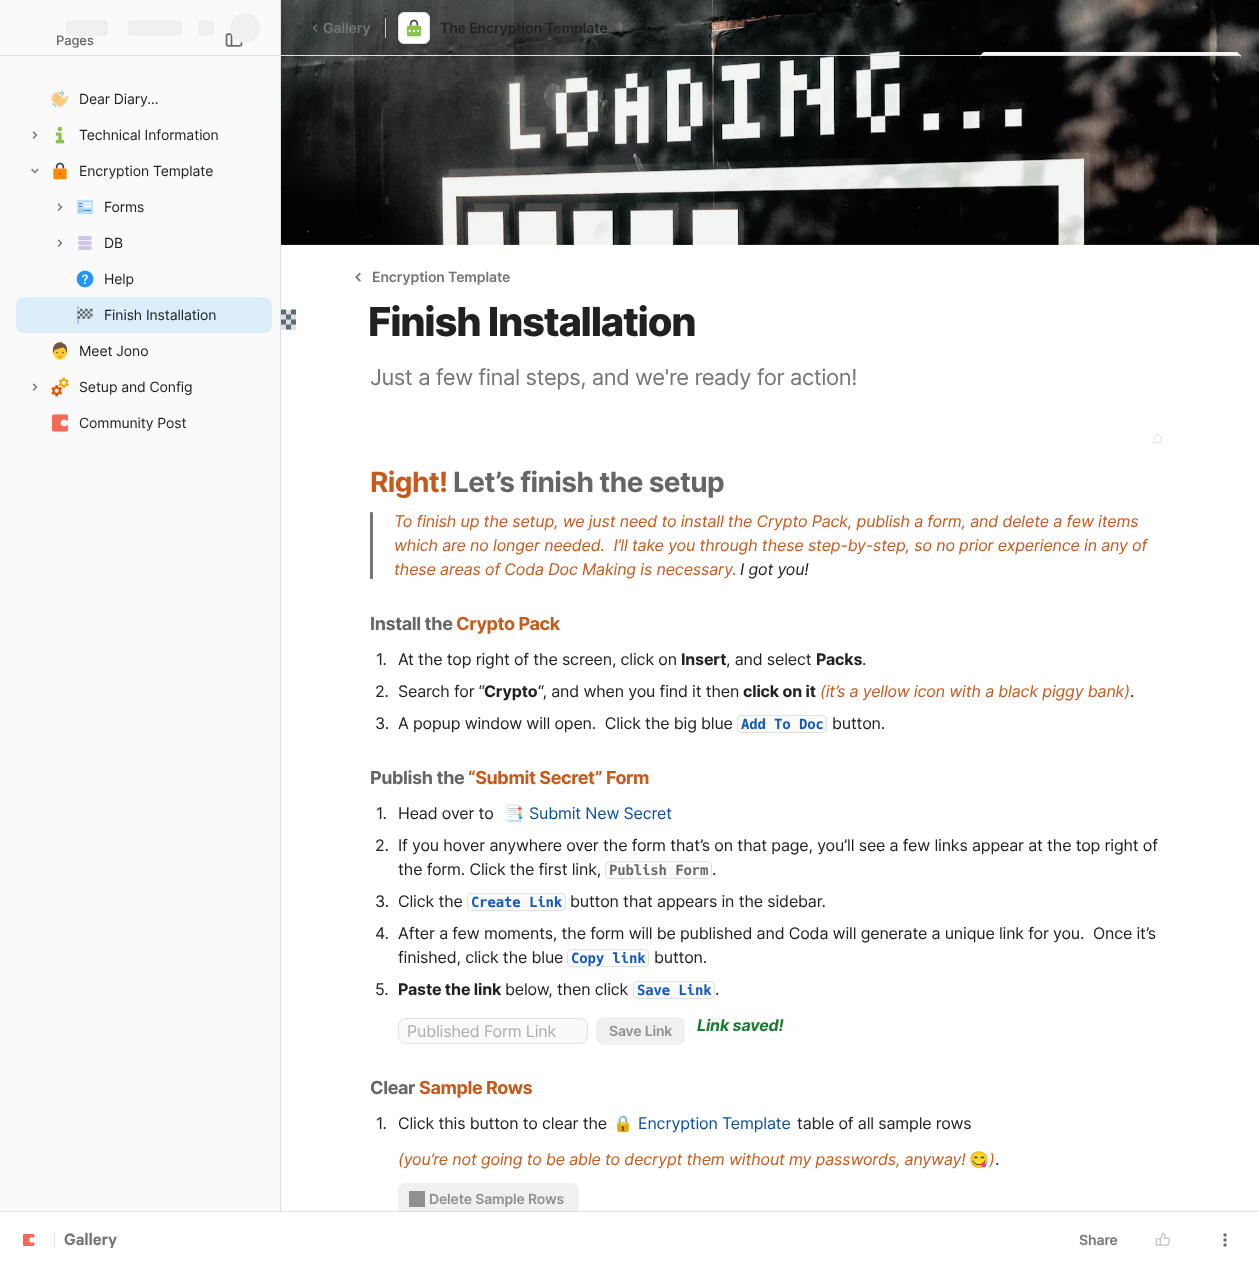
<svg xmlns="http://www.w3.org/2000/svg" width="1259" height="1268">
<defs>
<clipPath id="clip1"><rect x="980" y="52" width="261" height="32"/></clipPath>
<clipPath id="clip2"><rect x="980" y="52" width="261" height="3"/></clipPath>
<clipPath id="clip3"><rect width="1259" height="1211"/></clipPath>
</defs>
<rect width="100%" height="100%" fill="#fff"/>
<rect width="280" height="1211" fill="#fafafa"/>
<rect x="280" width="1" height="1212" fill="#e0e0e0"/>
<image x="281" y="0" width="978" height="245" href="media/16.png"/>
<rect y="55" width="1241" height="1" fill="#e0e0e0"/>
<text x="56" y="45" style="font-family:Inter;font-size:13px;font-weight:500;letter-spacing:-0.1px;fill:#666">Pages</text>
<rect x="66" y="20" width="42" height="16" rx="4" fill="#f0f0f0"/>
<rect x="128" y="20" width="54" height="16" rx="4" fill="#f0f0f0"/>
<rect x="198" y="20" width="16" height="16" rx="4" fill="#f0f0f0"/>
<image x="225" y="33" width="18" height="14" href="media/3.png"/>
<circle cx="245" cy="28" r="15" fill="#f0f0f0"/>
<image x="312" y="24" width="6" height="8" href="media/1.png"/>
<text x="323" y="33" style="font-family:Inter;font-size:14px;font-weight:600;letter-spacing:-0.1px;fill:#757575">Gallery</text>
<rect x="385" y="18" width="1" height="20" fill="#c6c6c6"/>
<rect x="398.5" y="12.5" width="31" height="31" rx="5.5" fill="#fff" stroke="#e0e0e0"/>
<image x="406" y="19" width="16" height="18" href="media/2.png"/>
<text x="440" y="33" style="font-family:Inter;font-size:14px;font-weight:600;letter-spacing:-0.1px;fill:#212121">The Encryption Template</text>
<g clip-path="url(#clip1)">
<path d="M988 51h245c4.5 0 8 3.5 8 8v-4h-261v4c0-4.5 3.5-8 8-8z" fill="#f5f5f5"/>
</g>
<g clip-path="url(#clip2)">
<rect x="980.5" y="51.5" width="260" height="33" rx="7.5" fill="none" stroke="#f0f0f0"/>
</g>
<rect y="1211" width="281" height="1" fill="#e0e0e0"/>
<image x="51" y="91" width="18" height="16" href="media/4.png"/>
<text x="79" y="104" style="font-family:Inter;font-size:14px;letter-spacing:-0.1px;fill:#212121">Dear Diary...</text>
<image x="32" y="131" width="6" height="8" href="media/5.png"/>
<image x="55" y="126" width="10" height="18" href="media/6.png"/>
<text x="79" y="140" style="font-family:Inter;font-size:14px;letter-spacing:-0.1px;fill:#212121">Technical Information</text>
<image x="31" y="168" width="8" height="6" href="media/7.png"/>
<image x="53" y="162" width="14" height="18" href="media/8.png"/>
<text x="79" y="176" style="font-family:Inter;font-size:14px;letter-spacing:-0.1px;fill:#212121">Encryption Template</text>
<image x="57" y="203" width="6" height="8" href="media/5.png"/>
<image x="77" y="199" width="16" height="16" href="media/9.png"/>
<text x="104" y="212" style="font-family:Inter;font-size:14px;letter-spacing:-0.1px;fill:#212121">Forms</text>
<image x="57" y="239" width="6" height="8" href="media/5.png"/>
<image x="78" y="236" width="14" height="14" href="media/10.png"/>
<text x="104" y="248" style="font-family:Inter;font-size:14px;letter-spacing:-0.1px;fill:#212121">DB</text>
<image x="76" y="270" width="18" height="18" href="media/11.png"/>
<text x="104" y="284" style="font-family:Inter;font-size:14px;letter-spacing:-0.1px;fill:#212121">Help</text>
<rect x="16" y="297" width="256" height="36" rx="8" fill="#dbeefa"/>
<image x="77" y="306" width="16" height="18" href="media/12.png"/>
<text x="104" y="320" style="font-family:Inter;font-size:14px;letter-spacing:-0.1px;fill:#212121">Finish Installation</text>
<image x="52" y="342" width="16" height="18" href="media/13.png"/>
<text x="79" y="356" style="font-family:Inter;font-size:14px;letter-spacing:-0.1px;fill:#212121">Meet Jono</text>
<image x="32" y="383" width="6" height="8" href="media/5.png"/>
<image x="51" y="377" width="18" height="20" href="media/14.png"/>
<text x="79" y="392" style="font-family:Inter;font-size:14px;letter-spacing:-0.1px;fill:#212121">Setup and Config</text>
<image x="52" y="414" width="16" height="18" href="media/15.png"/>
<text x="79" y="428" style="font-family:Inter;font-size:14px;letter-spacing:-0.1px;fill:#212121">Community Post</text>
<image x="355" y="272" width="6" height="10" href="media/17.png"/>
<text x="372" y="282" style="font-family:Inter;font-size:14px;font-weight:600;letter-spacing:-0.1px;fill:#757575">Encryption Template</text>
<image x="281" y="309" width="15" height="21" href="media/18.png"/>
<text x="368" y="336" style="font-family:Inter;font-size:40px;font-weight:800;letter-spacing:-1.25px;fill:#212121">Finish Installation</text>
<text x="370" y="385" style="font-family:Inter;font-size:22px;letter-spacing:-0.45px;fill:#757575">Just a few final steps, and we're ready for action!</text>
<text x="1152" y="443" style="font-family:Liberation Sans;font-size:18px;font-weight:bold;letter-spacing:-0.4px;fill:#ddd">⌂</text>
<text x="370" y="492" style="font-family:Inter;font-size:28px;font-weight:bold;letter-spacing:-0.6px;fill:#c45b1c">Right!</text>
<text x="453" y="492" style="font-family:Inter;font-size:28px;font-weight:bold;letter-spacing:-0.6px;fill:#666">Let’s finish the setup</text>
<rect x="370" y="512" width="3" height="67" rx="1" fill="#757575"/>
<text x="394" y="527" style="font-family:Inter;font-size:16px;font-style:italic;letter-spacing:-0.16px;fill:#c45b1c">To finish up the setup, we just need to install the Crypto Pack, publish a form, and delete a few items</text>
<text x="394" y="551" style="font-family:Inter;font-size:16px;font-style:italic;letter-spacing:-0.16px;fill:#c45b1c" xml:space="preserve">which are no longer needed.  I’ll take you through these step-by-step, so no prior experience in any of</text>
<text x="394" y="575" style="font-family:Inter;font-size:16px;font-style:italic;letter-spacing:-0.16px;fill:#c45b1c">these areas of Coda Doc Making is necessary.</text>
<text x="740" y="575" style="font-family:Inter;font-size:16px;font-style:italic;letter-spacing:-0.16px;fill:#212121">I got you!</text>
<text x="370" y="630" style="font-family:Inter;font-size:18px;font-weight:bold;letter-spacing:-0.4px;fill:#666">Install the</text>
<text x="456" y="630" style="font-family:Inter;font-size:18px;font-weight:bold;letter-spacing:-0.4px;fill:#c45b1c">Crypto Pack</text>
<text x="376" y="665" style="font-family:Inter;font-size:16px;letter-spacing:-0.16px;fill:#212121">1.</text>
<text x="398" y="665" style="font-family:Inter;font-size:16px;letter-spacing:-0.16px;fill:#212121">At the top right of the screen, click on</text>
<text x="681" y="665" style="font-family:Inter;font-size:16px;font-weight:bold;letter-spacing:-0.16px;fill:#212121">Insert</text>
<text x="726" y="665" style="font-family:Inter;font-size:16px;letter-spacing:-0.16px;fill:#212121">, and select</text>
<text x="816" y="665" style="font-family:Inter;font-size:16px;font-weight:bold;letter-spacing:-0.16px;fill:#212121">Packs</text>
<text x="862" y="665" style="font-family:Inter;font-size:16px;letter-spacing:-0.16px;fill:#212121">.</text>
<text x="375" y="697" style="font-family:Inter;font-size:16px;letter-spacing:-0.16px;fill:#212121">2.</text>
<text x="398" y="697" style="font-family:Inter;font-size:16px;letter-spacing:-0.16px;fill:#212121">Search for “</text>
<text x="484" y="697" style="font-family:Inter;font-size:16px;font-weight:bold;letter-spacing:-0.16px;fill:#212121">Crypto</text>
<text x="538" y="697" style="font-family:Inter;font-size:16px;letter-spacing:-0.16px;fill:#212121">“, and when you find it then</text>
<text x="743" y="697" style="font-family:Inter;font-size:16px;font-weight:bold;letter-spacing:-0.16px;fill:#212121">click on it</text>
<text x="820" y="697" style="font-family:Inter;font-size:16px;font-style:italic;letter-spacing:-0.16px;fill:#c45b1c">(it’s a yellow icon with a black piggy bank)</text>
<text x="1130" y="697" style="font-family:Inter;font-size:16px;letter-spacing:-0.16px;fill:#212121">.</text>
<text x="375" y="729" style="font-family:Inter;font-size:16px;letter-spacing:-0.16px;fill:#212121">3.</text>
<text x="398" y="729" style="font-family:Inter;font-size:16px;letter-spacing:-0.16px;fill:#212121" xml:space="preserve">A popup window will open.  Click the big blue</text>
<rect x="737.5" y="715.5" width="89" height="17" rx="3.5" fill="#fafafa" stroke="#e0e0e0"/>
<text x="741" y="729" style="font-family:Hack;font-size:14px;font-weight:bold;letter-spacing:-0.16px;fill:#0f58bd">Add To Doc</text>
<text x="832" y="729" style="font-family:Inter;font-size:16px;letter-spacing:-0.16px;fill:#212121">button.</text>
<text x="370" y="784" style="font-family:Inter;font-size:18px;font-weight:bold;letter-spacing:-0.4px;fill:#666">Publish the</text>
<text x="468" y="784" style="font-family:Inter;font-size:18px;font-weight:bold;letter-spacing:-0.4px;fill:#c45b1c">“Submit Secret” Form</text>
<text x="376" y="819" style="font-family:Inter;font-size:16px;letter-spacing:-0.16px;fill:#212121">1.</text>
<text x="398" y="819" style="font-family:Inter;font-size:16px;letter-spacing:-0.16px;fill:#212121">Head over to</text>
<text x="504" y="819" style="font-family:Noto Color Emoji;font-size:16px;letter-spacing:-0.16px;fill:#094e9b">📑</text>
<text x="529" y="819" style="font-family:Inter;font-size:16px;letter-spacing:-0.16px;fill:#094e9b">Submit New Secret</text>
<text x="375" y="851" style="font-family:Inter;font-size:16px;letter-spacing:-0.16px;fill:#212121">2.</text>
<text x="398" y="851" style="font-family:Inter;font-size:16px;letter-spacing:-0.16px;fill:#212121">If you hover anywhere over the form that’s on that page, you’ll see a few links appear at the top right of</text>
<text x="398" y="875" style="font-family:Inter;font-size:16px;letter-spacing:-0.16px;fill:#212121">the form. Click the first link,</text>
<rect x="605.5" y="861.5" width="106" height="17" rx="3.5" fill="#fafafa" stroke="#e0e0e0"/>
<text x="609" y="875" style="font-family:Hack;font-size:14px;font-weight:bold;letter-spacing:-0.16px;fill:#666">Publish Form</text>
<text x="712" y="875" style="font-family:Inter;font-size:16px;letter-spacing:-0.16px;fill:#212121">.</text>
<text x="375" y="907" style="font-family:Inter;font-size:16px;letter-spacing:-0.16px;fill:#212121">3.</text>
<text x="398" y="907" style="font-family:Inter;font-size:16px;letter-spacing:-0.16px;fill:#212121">Click the</text>
<rect x="467.5" y="893.5" width="98" height="17" rx="3.5" fill="#fafafa" stroke="#e0e0e0"/>
<text x="471" y="907" style="font-family:Hack;font-size:14px;font-weight:bold;letter-spacing:-0.16px;fill:#0f58bd">Create Link</text>
<text x="570" y="907" style="font-family:Inter;font-size:16px;letter-spacing:-0.16px;fill:#212121">button that appears in the sidebar.</text>
<text x="375" y="939" style="font-family:Inter;font-size:16px;letter-spacing:-0.16px;fill:#212121">4.</text>
<text x="398" y="939" style="font-family:Inter;font-size:16px;letter-spacing:-0.16px;fill:#212121" xml:space="preserve">After a few moments, the form will be published and Coda will generate a unique link for you.  Once it’s</text>
<text x="398" y="963" style="font-family:Inter;font-size:16px;letter-spacing:-0.16px;fill:#212121">finished, click the blue</text>
<rect x="567.5" y="949.5" width="81" height="17" rx="3.5" fill="#fafafa" stroke="#e0e0e0"/>
<text x="571" y="963" style="font-family:Hack;font-size:14px;font-weight:bold;letter-spacing:-0.16px;fill:#0f58bd">Copy link</text>
<text x="654" y="963" style="font-family:Inter;font-size:16px;letter-spacing:-0.16px;fill:#212121">button.</text>
<text x="375" y="995" style="font-family:Inter;font-size:16px;letter-spacing:-0.16px;fill:#212121">5.</text>
<text x="398" y="995" style="font-family:Inter;font-size:16px;font-weight:bold;letter-spacing:-0.16px;fill:#212121">Paste the link</text>
<text x="505" y="995" style="font-family:Inter;font-size:16px;letter-spacing:-0.16px;fill:#212121">below, then click</text>
<rect x="633.5" y="981.5" width="81" height="17" rx="3.5" fill="#fafafa" stroke="#e0e0e0"/>
<text x="637" y="995" style="font-family:Hack;font-size:14px;font-weight:bold;letter-spacing:-0.16px;fill:#0f58bd">Save Link</text>
<text x="715" y="995" style="font-family:Inter;font-size:16px;letter-spacing:-0.16px;fill:#212121">.</text>
<rect x="398.5" y="1018.5" width="189" height="25" rx="7.5" fill="#fafafa" stroke="#e0e0e0"/>
<text x="407" y="1037" style="font-family:Inter;font-size:16px;letter-spacing:-0.16px;fill:#aeaeae">Published Form Link</text>
<rect x="596" y="1017" width="89" height="28" rx="8" fill="#f0f0f0"/>
<text x="609" y="1036" style="font-family:Inter;font-size:14px;font-weight:600;letter-spacing:-0.16px;fill:#909090">Save Link</text>
<text x="697" y="1031" style="font-family:Inter;font-size:16px;font-weight:bold;font-style:italic;letter-spacing:-0.16px;fill:#187b34">Link saved!</text>
<text x="370" y="1094" style="font-family:Inter;font-size:18px;font-weight:bold;letter-spacing:-0.4px;fill:#666">Clear</text>
<text x="419" y="1094" style="font-family:Inter;font-size:18px;font-weight:bold;letter-spacing:-0.4px;fill:#c45b1c">Sample Rows</text>
<text x="376" y="1129" style="font-family:Inter;font-size:16px;letter-spacing:-0.16px;fill:#212121">1.</text>
<text x="398" y="1129" style="font-family:Inter;font-size:16px;letter-spacing:-0.16px;fill:#212121">Click this button to clear the</text>
<text x="613" y="1129" style="font-family:Noto Color Emoji;font-size:16px;letter-spacing:-0.16px;fill:#094e9b">🔒</text>
<text x="638" y="1129" style="font-family:Inter;font-size:16px;letter-spacing:-0.16px;fill:#094e9b">Encryption Template</text>
<text x="797" y="1129" style="font-family:Inter;font-size:16px;letter-spacing:-0.16px;fill:#212121">table of all sample rows</text>
<text x="398" y="1165" style="font-family:Inter;font-size:16px;font-style:italic;letter-spacing:-0.16px;fill:#c45b1c">(you’re not going to be able to decrypt them without my passwords, anyway!</text>
<text x="969" y="1165" style="font-family:Noto Color Emoji;font-size:16px;letter-spacing:-0.16px;fill:#c45b1c">😋</text>
<text x="989" y="1165" style="font-family:Inter;font-size:16px;font-style:italic;letter-spacing:-0.16px;fill:#c45b1c">)</text>
<text x="995" y="1165" style="font-family:Inter;font-size:16px;letter-spacing:-0.16px;fill:#212121">.</text>
<rect x="281" y="1211" width="978" height="1" fill="#e0e0e0"/>
<g clip-path="url(#clip3)">
<rect x="398" y="1183" width="181" height="32" rx="8" fill="#f0f0f0"/>
</g>
<rect x="409" y="1191" width="16" height="16" fill="#909090"/>
<text x="429" y="1204" style="font-family:Inter;font-size:14px;font-weight:600;letter-spacing:-0.16px;fill:#909090">Delete Sample Rows</text>
<image x="23" y="1234" width="12" height="12" href="media/19.png"/>
<rect x="54" y="1233" width="1" height="14" fill="#e0e0e0"/>
<text x="64" y="1245" style="font-family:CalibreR;font-size:16px;font-weight:600;letter-spacing:-0.1px;fill:#757575">Gallery</text>
<text x="1079" y="1245" style="font-family:Inter;font-size:14px;font-weight:600;letter-spacing:-0.1px;fill:#757575">Share</text>
<image x="1155" y="1233" width="15" height="13" href="media/20.png"/>
<image x="1223" y="1233" width="4" height="14" href="media/21.png"/>
</svg>
